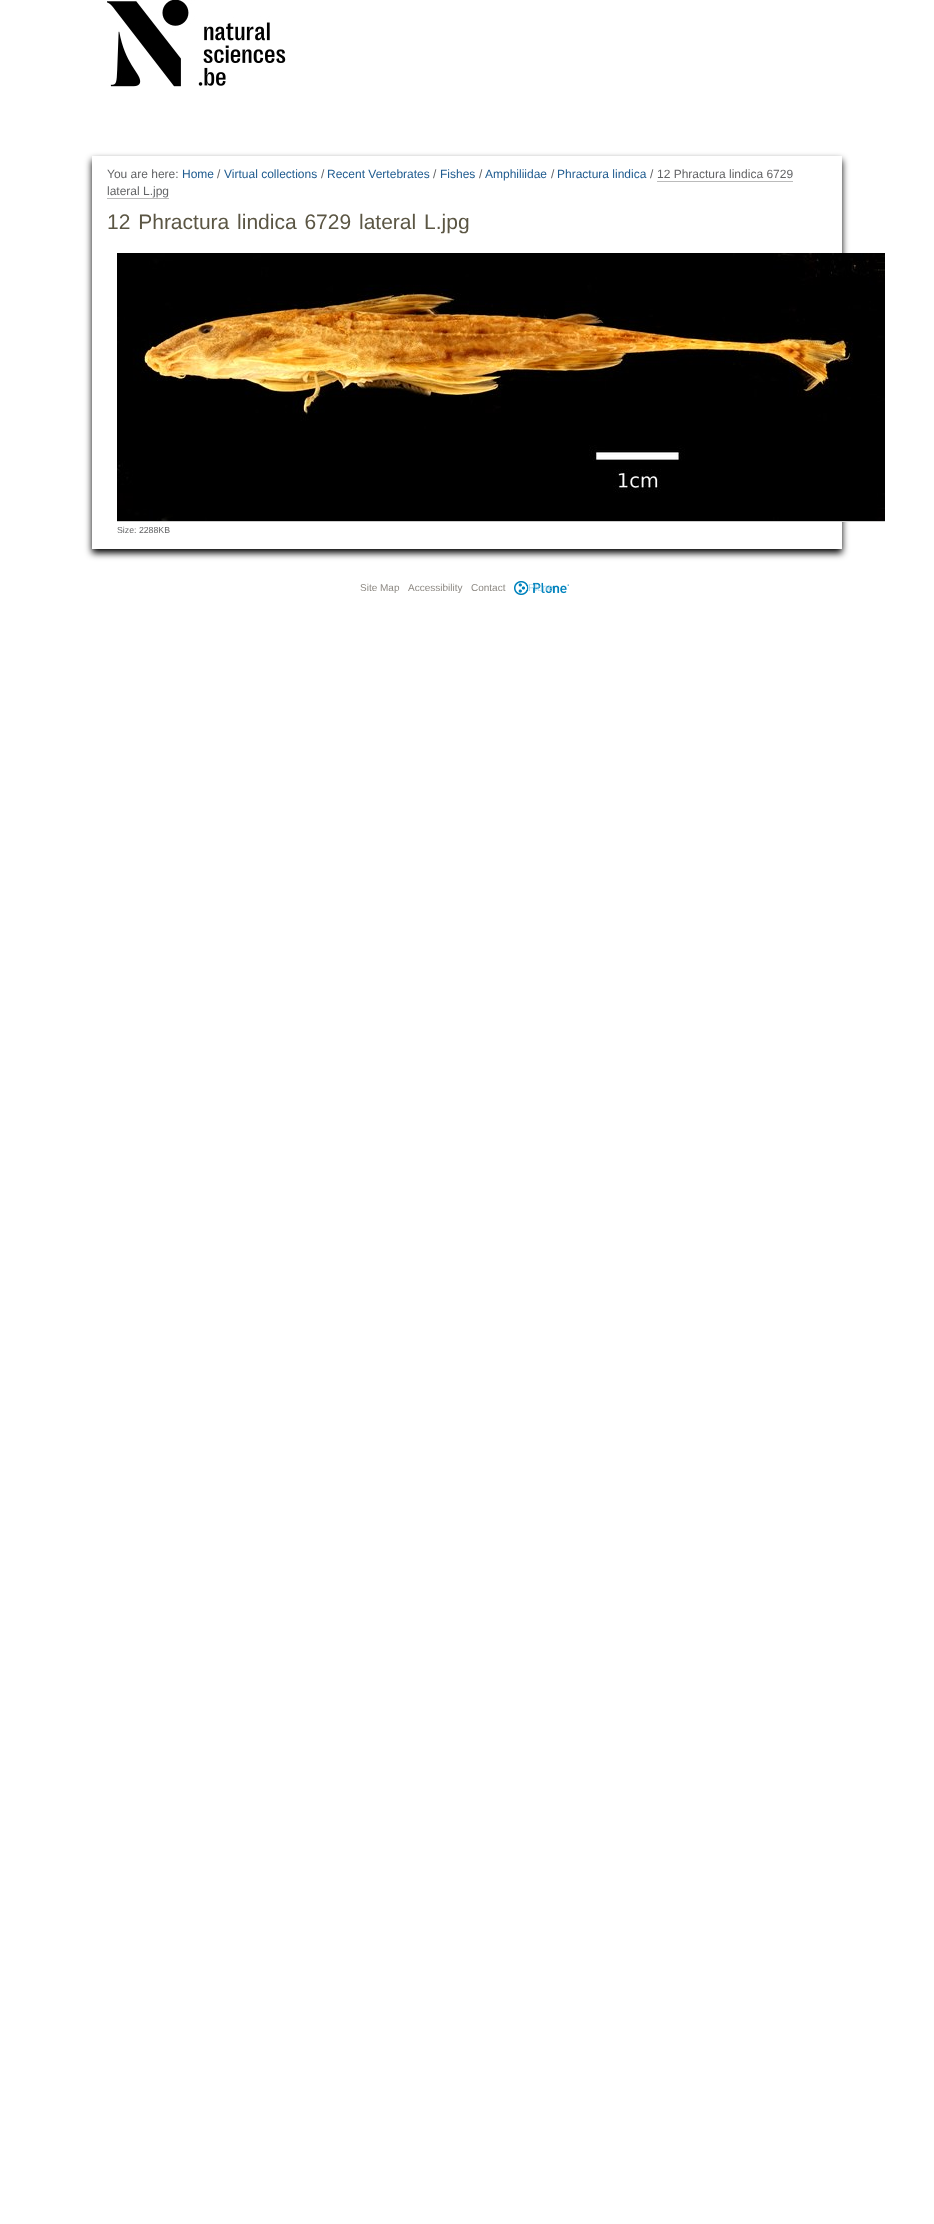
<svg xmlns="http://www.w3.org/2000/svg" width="934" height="2224">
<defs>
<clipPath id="clip1"><path d="M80 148h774v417h-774zm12 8h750v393h-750z" clip-rule="evenodd"/></clipPath>
</defs>
<rect width="100%" height="100%" fill="#fff"/>
<image x="107" y="0" width="179" height="87" href="media/1.png"/>
<g clip-path="url(#clip1)">
<rect x="92" y="160" width="750" height="393" fill="#000" filter="blur(3.5px)"/>
</g>
<text x="107" y="178" style="font-family:Liberation Sans;font-size:12px;fill:#636466">You are here:</text>
<text x="182" y="178" style="font-family:Liberation Sans;font-size:12px;fill:#205c90">Home</text>
<text x="217" y="178" style="font-family:Liberation Sans;font-size:12px;fill:#636466">/</text>
<text x="224" y="178" style="font-family:Liberation Sans;font-size:12px;fill:#205c90">Virtual collections</text>
<text x="321" y="178" style="font-family:Liberation Sans;font-size:12px;fill:#636466">/</text>
<text x="327" y="178" style="font-family:Liberation Sans;font-size:12px;fill:#205c90">Recent Vertebrates</text>
<text x="433" y="178" style="font-family:Liberation Sans;font-size:12px;fill:#636466">/</text>
<text x="440" y="178" style="font-family:Liberation Sans;font-size:12px;fill:#205c90">Fishes</text>
<text x="479" y="178" style="font-family:Liberation Sans;font-size:12px;fill:#636466">/</text>
<text x="485" y="178" style="font-family:Liberation Sans;font-size:12px;fill:#205c90">Amphiliidae</text>
<text x="551" y="178" style="font-family:Liberation Sans;font-size:12px;fill:#636466">/</text>
<text x="557" y="178" style="font-family:Liberation Sans;font-size:12px;fill:#205c90">Phractura lindica</text>
<text x="650" y="178" style="font-family:Liberation Sans;font-size:12px;fill:#636466">/</text>
<text x="657" y="178" style="font-family:Liberation Sans;font-size:12px;fill:#636466">12 Phractura lindica 6729</text>
<rect x="657" y="181" width="136" height="1" fill="#bbb"/>
<text x="107" y="195" style="font-family:Liberation Sans;font-size:12px;fill:#636466">lateral L.jpg</text>
<rect x="107" y="198" width="62" height="1" fill="#bbb"/>
<text x="107" y="229" word-spacing="2" style="font-family:Liberation Sans;font-size:21px;fill:#5b5644">12 Phractura lindica 6729 lateral L.jpg</text>
<rect x="117" y="521" width="768" height="1" fill="#ccc"/>
<image x="117" y="253" width="768" height="268" href="media/2.png"/>
<text x="117" y="533" style="font-family:Liberation Sans;font-size:8.75px;fill:#636466">Size: 2288KB</text>
<text x="360" y="591" style="font-family:Liberation Sans;font-size:10px;fill:#8c8882">Site Map</text>
<text x="408" y="591" style="font-family:Liberation Sans;font-size:10px;fill:#8c8882">Accessibility</text>
<text x="471" y="591" style="font-family:Liberation Sans;font-size:10px;fill:#8c8882">Contact</text>
<image x="514" y="581" width="55" height="14" href="media/3.png"/>
<text x="528" y="591" style="font-family:Liberation Sans;font-size:10px;fill:#a1d1e7">Plone</text>
</svg>
